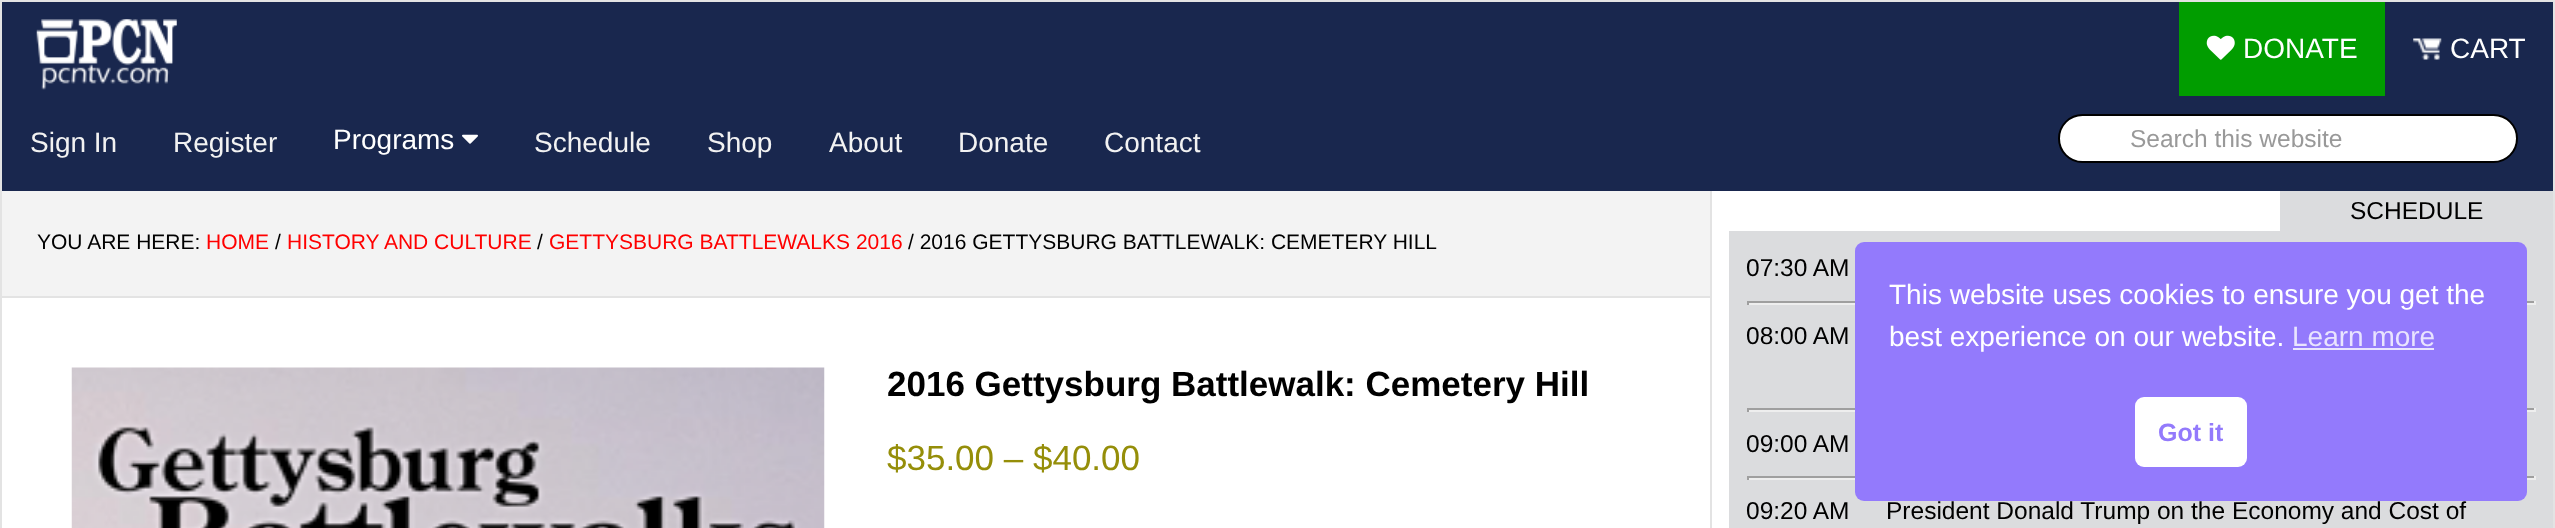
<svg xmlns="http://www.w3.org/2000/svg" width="2555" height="528">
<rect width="100%" height="100%" fill="#fff"/>
<rect x="1" y="1" width="2553" height="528" fill="none" stroke="#e3e3e3" stroke-width="2"/>
<rect x="2" y="2" width="2551" height="189" fill="#19274e"/>
<image x="36" y="19" width="141" height="71" href="media/1.png"/>
<rect x="2179" y="2" width="206" height="94" fill="#019d00"/>
<image x="2206" y="35" width="29" height="25" href="media/2.png"/>
<text x="2243" y="58" style="font-family:Liberation Sans;font-size:28px;fill:#fff">DONATE</text>
<image x="2413" y="38" width="29" height="22" href="media/3.png"/>
<text x="2450" y="58" style="font-family:Liberation Sans;font-size:28px;fill:#fff">CART</text>
<text x="30" y="152" style="font-family:Liberation Sans;font-size:28px;fill:#f2f2f2">Sign In</text>
<text x="173" y="152" style="font-family:Liberation Sans;font-size:28px;fill:#f2f2f2">Register</text>
<text x="333" y="149" style="font-family:Liberation Sans;font-size:28px;fill:#fff">Programs</text>
<image x="462" y="134" width="16" height="10" href="media/4.png"/>
<text x="534" y="152" style="font-family:Liberation Sans;font-size:28px;fill:#f2f2f2">Schedule</text>
<text x="707" y="152" style="font-family:Liberation Sans;font-size:28px;fill:#f2f2f2">Shop</text>
<text x="829" y="152" style="font-family:Liberation Sans;font-size:28px;fill:#f2f2f2">About</text>
<text x="958" y="152" style="font-family:Liberation Sans;font-size:28px;fill:#f2f2f2">Donate</text>
<text x="1104" y="152" style="font-family:Liberation Sans;font-size:28px;fill:#f2f2f2">Contact</text>
<rect x="2059" y="115" width="458" height="47" rx="23.5" fill="#fff" stroke="#000" stroke-width="2"/>
<text x="2130" y="147" style="font-family:Liberation Sans;font-size:24.5px;fill:#999">Search this website</text>
<rect x="1710" y="191" width="2" height="337" fill="#e3e3e3"/>
<rect x="2" y="191" width="1708" height="105" fill="#f3f3f3"/>
<rect x="2" y="296" width="1708" height="2" fill="#e3e3e3"/>
<text x="37" y="249" style="font-family:Liberation Sans;font-size:21px;fill:#000">YOU ARE HERE:</text>
<text x="206" y="249" style="font-family:Liberation Sans;font-size:21px;fill:#f00">HOME</text>
<text x="275" y="249" style="font-family:Liberation Sans;font-size:21px;fill:#000">/</text>
<text x="287" y="249" style="font-family:Liberation Sans;font-size:21px;fill:#f00">HISTORY AND CULTURE</text>
<text x="537" y="249" style="font-family:Liberation Sans;font-size:21px;fill:#000">/</text>
<text x="549" y="249" style="font-family:Liberation Sans;font-size:21px;fill:#f00">GETTYSBURG BATTLEWALKS 2016</text>
<text x="908" y="249" style="font-family:Liberation Sans;font-size:21px;fill:#000">/ 2016 GETTYSBURG BATTLEWALK: CEMETERY HILL</text>
<image x="71" y="367" width="754" height="161" href="media/5.png"/>
<text x="887" y="396" style="font-family:Liberation Sans;font-size:35px;font-weight:bold;fill:#000">2016 Gettysburg Battlewalk: Cemetery Hill</text>
<text x="887" y="470" style="font-family:Liberation Sans;font-size:35px;fill:#958e09">$35.00 – $40.00</text>
<rect x="2280" y="191" width="273" height="40" fill="#dbdcde"/>
<text x="2350" y="219" style="font-family:Liberation Sans;font-size:24.5px;fill:#000">SCHEDULE</text>
<rect x="1729" y="231" width="824" height="297" fill="#dbdcde"/>
<text x="1746" y="276" style="font-family:Liberation Sans;font-size:24.5px;fill:#000">07:30 AM</text>
<rect x="1747" y="301" width="789" height="2" fill="#9f9f9f"/>
<rect x="2534" y="301" width="2" height="4" fill="#eee"/>
<rect x="1747" y="303" width="789" height="2" fill="#eee"/>
<rect x="1747" y="301" width="2" height="4" fill="#9f9f9f"/>
<text x="1746" y="344" style="font-family:Liberation Sans;font-size:24.5px;fill:#000">08:00 AM</text>
<rect x="1747" y="408" width="789" height="2" fill="#9f9f9f"/>
<rect x="2534" y="408" width="2" height="4" fill="#eee"/>
<rect x="1747" y="410" width="789" height="2" fill="#eee"/>
<rect x="1747" y="408" width="2" height="4" fill="#9f9f9f"/>
<text x="1746" y="452" style="font-family:Liberation Sans;font-size:24.5px;fill:#000">09:00 AM</text>
<rect x="1747" y="476" width="789" height="2" fill="#9f9f9f"/>
<rect x="2534" y="476" width="2" height="4" fill="#eee"/>
<rect x="1747" y="478" width="789" height="2" fill="#eee"/>
<rect x="1747" y="476" width="2" height="4" fill="#9f9f9f"/>
<text x="1746" y="519" style="font-family:Liberation Sans;font-size:24.5px;fill:#000">09:20 AM</text>
<text x="1886" y="519" style="font-family:Liberation Sans;font-size:24.5px;fill:#000">President Donald Trump on the Economy and Cost of</text>
<rect x="1855" y="242" width="672" height="259" rx="9" fill="#937afc"/>
<text x="1889" y="304" style="font-family:Liberation Sans;font-size:28px;fill:#fff">This website uses cookies to ensure you get the</text>
<text x="1889" y="346" style="font-family:Liberation Sans;font-size:28px;fill:#fff">best experience on our website.</text>
<text x="2292" y="346" style="font-family:Liberation Sans;font-size:28px;fill:#e9e4fe">Learn more</text>
<rect x="2293" y="348" width="141" height="2" fill="#e9e4fe"/>
<rect x="2135" y="397" width="112" height="70" rx="9" fill="#fff"/>
<text x="2158" y="441" style="font-family:Liberation Sans;font-size:25px;font-weight:bold;fill:#937afc">Got it</text>
</svg>
